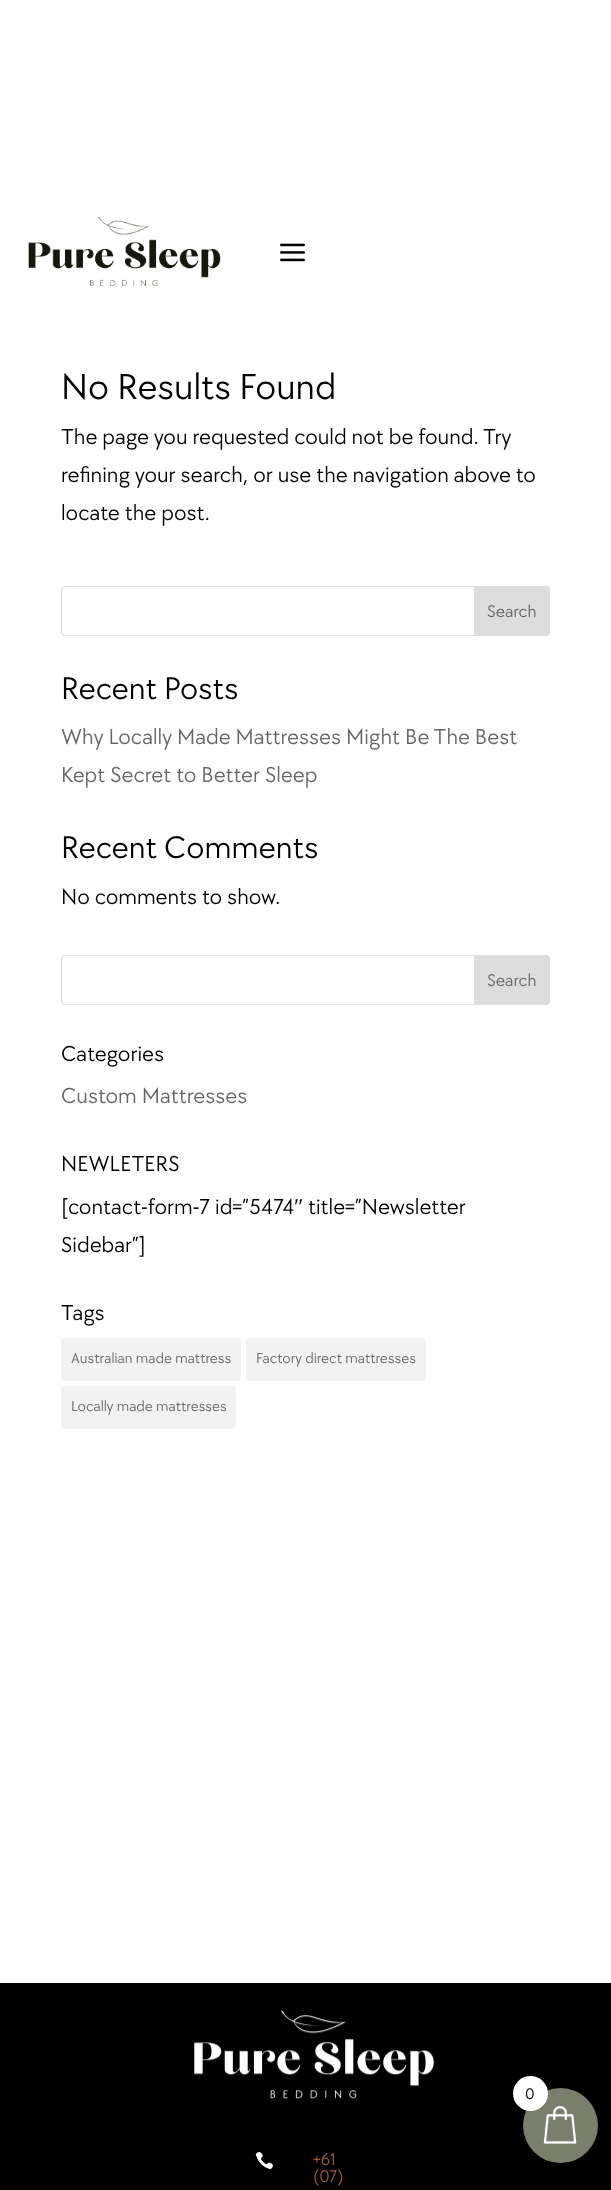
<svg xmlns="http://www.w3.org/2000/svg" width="611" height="2190">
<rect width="100%" height="100%" fill="#fff"/>
<image x="28" y="217" width="193" height="70" href="media/1.png"/>
<image x="280" y="243" width="25" height="19" href="media/2.png"/>
<text x="61" y="399" style="font-family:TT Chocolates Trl;font-size:37.5px;fill:#000">No Results Found</text>
<text x="61" y="444" style="font-family:TT Chocolates Trl;font-size:22.5px;fill:#000">The page you requested could not be found. Try</text>
<text x="61" y="482" style="font-family:TT Chocolates Trl;font-size:22.5px;fill:#000">refining your search, or use the navigation above to</text>
<text x="61" y="520" style="font-family:TT Chocolates Trl;font-size:22.5px;fill:#000">locate the post.</text>
<rect x="61.5" y="586.5" width="488" height="49" rx="3.5" fill="none" stroke="#ddd"/>
<path d="M474.5 586.5h71.5c2 0 3.5 1.5 3.5 3.5v42c0 2-1.5 3.5-3.5 3.5h-71.5z" fill="#ddd" stroke="#ddd"/>
<text x="487" y="617" style="font-family:TT Chocolates Trl;font-size:17.5px;fill:#666">Search</text>
<text x="61" y="699" style="font-family:TT Chocolates Trl;font-size:32.5px;fill:#000">Recent Posts</text>
<text x="61" y="744" style="font-family:TT Chocolates Trl;font-size:22.5px;fill:#666">Why Locally Made Mattresses Might Be The Best</text>
<text x="61" y="782" style="font-family:TT Chocolates Trl;font-size:22.5px;fill:#666">Kept Secret to Better Sleep</text>
<text x="61" y="858" style="font-family:TT Chocolates Trl;font-size:32.5px;fill:#000">Recent Comments</text>
<text x="61" y="904" style="font-family:TT Chocolates Trl;font-size:22.5px;fill:#000">No comments to show.</text>
<rect x="61.5" y="955.5" width="488" height="49" rx="3.5" fill="none" stroke="#ddd"/>
<path d="M474.5 955.5h71.5c2 0 3.5 1.5 3.5 3.5v42c0 2-1.5 3.5-3.5 3.5h-71.5z" fill="#ddd" stroke="#ddd"/>
<text x="487" y="986" style="font-family:TT Chocolates Trl;font-size:17.5px;fill:#666">Search</text>
<text x="61" y="1061" style="font-family:TT Chocolates Trl;font-size:22.5px;fill:#000">Categories</text>
<text x="61" y="1103" style="font-family:TT Chocolates Trl;font-size:22.5px;fill:#666">Custom Mattresses</text>
<text x="61" y="1171" style="font-family:TT Chocolates Trl;font-size:22.5px;fill:#000">NEWLETERS</text>
<text x="61" y="1214" style="font-family:TT Chocolates Trl;font-size:22.5px;fill:#000">[contact-form-7 id=”5474</text>
<text x="294" y="1214" style="font-family:Liberation Serif;font-size:22.5px;fill:#000">″</text>
<text x="308" y="1214" style="font-family:TT Chocolates Trl;font-size:22.5px;fill:#000">title=”Newsletter</text>
<text x="61" y="1252" style="font-family:TT Chocolates Trl;font-size:22.5px;fill:#000">Sidebar”]</text>
<text x="61" y="1320" style="font-family:TT Chocolates Trl;font-size:22.5px;fill:#000">Tags</text>
<rect x="61" y="1338" width="180" height="43" rx="4" fill="#f2f2f2"/>
<text x="71" y="1363" style="font-family:TT Chocolates Trl;font-size:15px;fill:#666">Australian made mattress</text>
<rect x="246" y="1338" width="180" height="43" rx="4" fill="#f2f2f2"/>
<text x="256" y="1363" style="font-family:TT Chocolates Trl;font-size:15px;fill:#666">Factory direct mattresses</text>
<rect x="61" y="1386" width="175" height="43" rx="4" fill="#f2f2f2"/>
<text x="71" y="1411" style="font-family:TT Chocolates Trl;font-size:15px;fill:#666">Locally made mattresses</text>
<rect y="1983" width="611" height="207" fill="#000"/>
<image x="194" y="2010" width="240" height="89" href="media/3.png"/>
<image x="255" y="2152" width="18" height="18" href="media/4.png"/>
<text x="313" y="2165" style="font-family:TT Chocolates Trl;font-size:17.5px;fill:#995a43">+61</text>
<text x="313" y="2182" style="font-family:TT Chocolates Trl;font-size:17.5px;fill:#995a43">(07)</text>
<circle cx="560.5" cy="2125.5" r="37.5" fill="#7a7e6d"/>
<image x="543" y="2106" width="34" height="38" href="media/5.png"/>
<circle cx="530.5" cy="2093.5" r="17.5" fill="#fff"/>
<text x="525" y="2099" style="font-family:TT Chocolates Trl;font-size:16px;fill:#000">0</text>
</svg>
